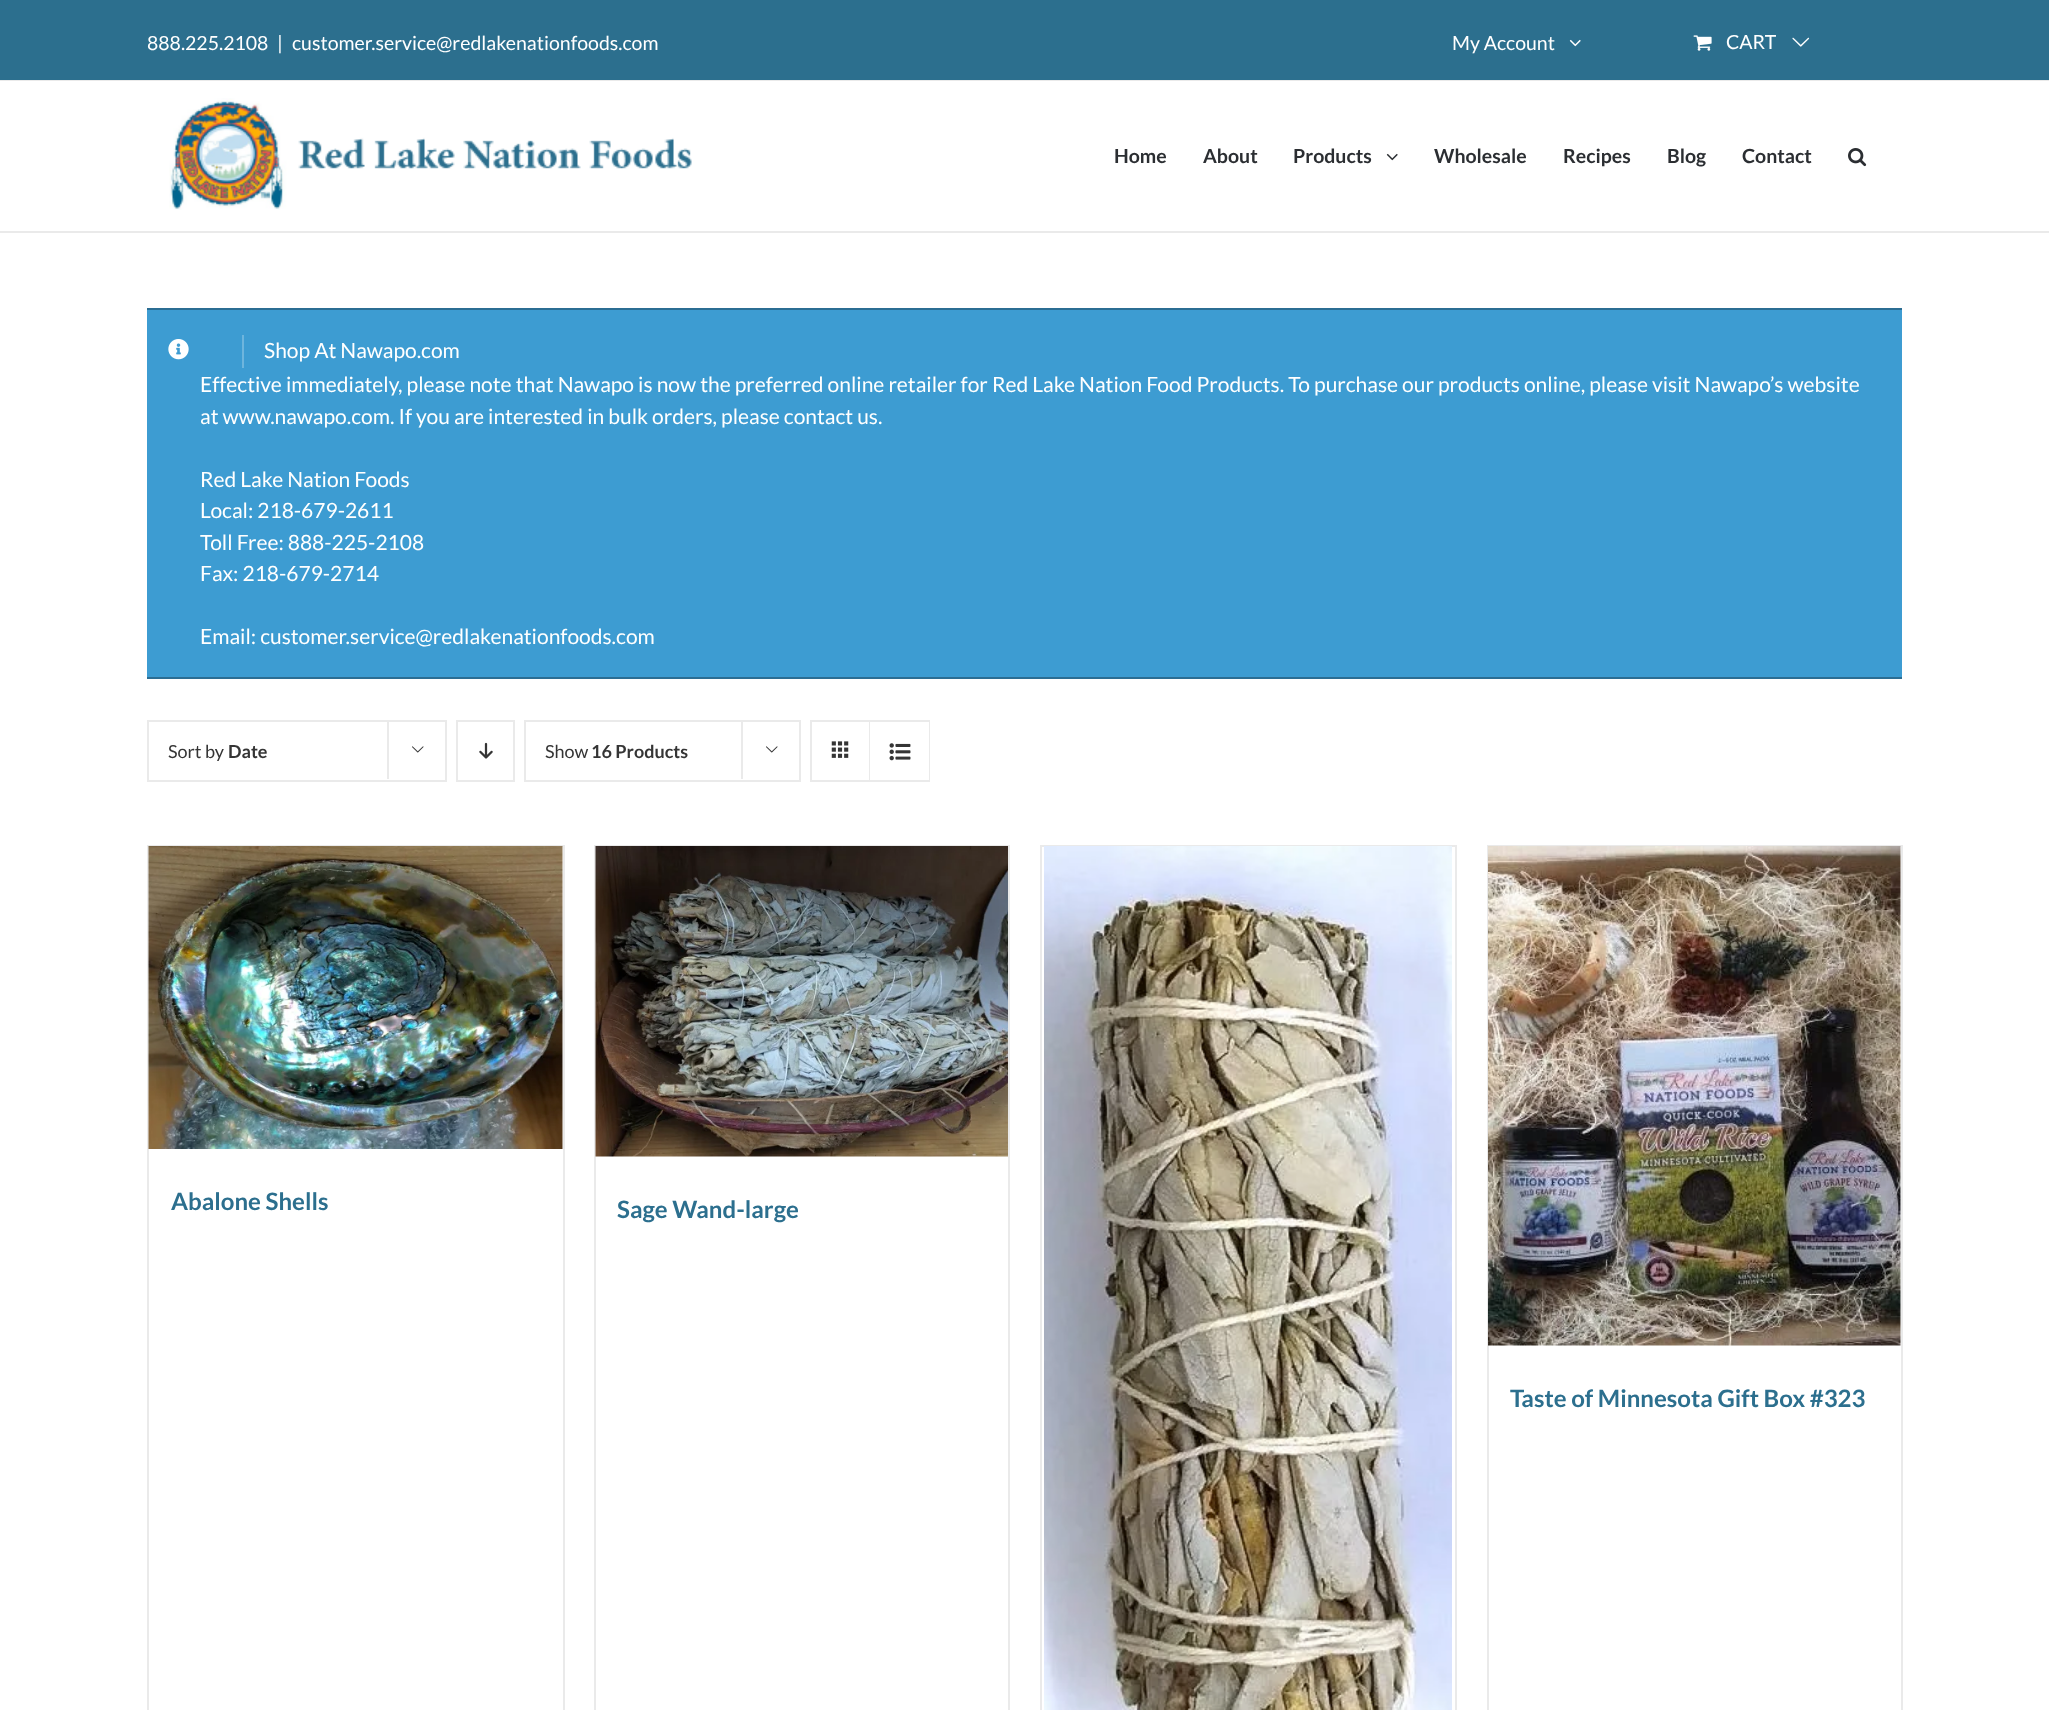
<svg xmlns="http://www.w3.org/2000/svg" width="2049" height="1710">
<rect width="100%" height="100%" fill="#fff"/>
<rect width="2049" height="80" fill="#2c6f8e"/>
<rect y="80" width="2049" height="1" fill="#eaeaea"/>
<text x="147" y="50" style="font-family:Lato;font-size:19.5px;fill:#fff">888.225.2108</text>
<text x="277" y="50" style="font-family:Lato;font-size:19.5px;fill:#fff">|</text>
<text x="292" y="50" style="font-family:Lato;font-size:19.5px;fill:#fff">customer.service@redlakenationfoods.com</text>
<text x="1452" y="50" style="font-family:Lato;font-size:19.5px;fill:#fff">My Account</text>
<image x="1569" y="39" width="12" height="8" href="media/1.png"/>
<image x="1693" y="35" width="19" height="16" href="media/2.png"/>
<text x="1726" y="49" style="font-family:Lato;font-size:19.5px;fill:#fff">CART</text>
<image x="1792" y="37" width="18" height="10" href="media/3.png"/>
<rect y="231" width="2049" height="2" fill="#eaeaea"/>
<image x="169" y="98" width="523" height="112" href="media/4.png"/>
<text x="1114" y="163" style="font-family:Lato;font-size:19.5px;font-weight:bold;fill:#2b2e32">Home</text>
<text x="1203" y="163" style="font-family:Lato;font-size:19.5px;font-weight:bold;fill:#2b2e32">About</text>
<text x="1293" y="163" style="font-family:Lato;font-size:19.5px;font-weight:bold;fill:#2b2e32">Products</text>
<image x="1386" y="153" width="12" height="8" href="media/5.png"/>
<text x="1434" y="163" style="font-family:Lato;font-size:19.5px;font-weight:bold;fill:#2b2e32">Wholesale</text>
<text x="1563" y="163" style="font-family:Lato;font-size:19.5px;font-weight:bold;fill:#2b2e32">Recipes</text>
<text x="1667" y="163" style="font-family:Lato;font-size:19.5px;font-weight:bold;fill:#2b2e32">Blog</text>
<text x="1742" y="163" style="font-family:Lato;font-size:19.5px;font-weight:bold;fill:#2b2e32">Contact</text>
<image x="1848" y="148" width="19" height="19" href="media/6.png"/>
<rect x="147" y="310" width="1755" height="367" fill="#3d9cd2"/>
<rect x="147" y="308" width="1755" height="2" fill="#2b6d93"/>
<rect x="147" y="677" width="1755" height="2" fill="#2b6d93"/>
<image x="168" y="339" width="21" height="21" href="media/7.png"/>
<rect x="242" y="335" width="2" height="33" fill="#6eb5dd"/>
<text x="264" y="358" style="font-family:Lato;font-size:21px;fill:#fff">Shop At Nawapo.com</text>
<text x="200" y="392" style="font-family:Lato;font-size:21px;fill:#fff">Effective immediately, please note that Nawapo is now the preferred online retailer for Red Lake Nation Food Products. To purchase our products online, please visit Nawapo’s website</text>
<text x="200" y="424" style="font-family:Lato;font-size:21px;fill:#fff">at www.nawapo.com. If you are interested in bulk orders, please contact us.</text>
<text x="200" y="487" style="font-family:Lato;font-size:21px;fill:#fff">Red Lake Nation Foods</text>
<text x="200" y="518" style="font-family:Lato;font-size:21px;fill:#fff">Local: 218-679-2611</text>
<text x="200" y="550" style="font-family:Lato;font-size:21px;fill:#fff">Toll Free: 888-225-2108</text>
<text x="200" y="581" style="font-family:Lato;font-size:21px;fill:#fff">Fax: 218-679-2714</text>
<text x="200" y="644" style="font-family:Lato;font-size:21px;fill:#fff">Email: customer.service@redlakenationfoods.com</text>
<rect x="148" y="721" width="298" height="60" fill="none" stroke="#eaeaea" stroke-width="2"/>
<text x="168" y="758" style="font-family:Lato;font-size:18px;fill:#353535">Sort by</text>
<text x="228" y="758" style="font-family:Lato;font-size:18px;font-weight:bold;fill:#353535">Date</text>
<rect x="387" y="720" width="2" height="59" fill="#eaeaea"/>
<image x="412" y="746" width="12" height="7" href="media/8.png"/>
<rect x="457" y="721" width="57" height="60" fill="none" stroke="#eaeaea" stroke-width="2"/>
<image x="479" y="742" width="14" height="17" href="media/9.png"/>
<rect x="525" y="721" width="275" height="60" fill="none" stroke="#eaeaea" stroke-width="2"/>
<text x="545" y="758" style="font-family:Lato;font-size:18px;fill:#353535">Show</text>
<text x="591" y="758" style="font-family:Lato;font-size:18px;font-weight:bold;fill:#353535">16 Products</text>
<rect x="741" y="720" width="2" height="59" fill="#eaeaea"/>
<image x="766" y="746" width="12" height="7" href="media/8.png"/>
<rect x="811" y="721" width="118" height="60" fill="none" stroke="#eaeaea" stroke-width="2"/>
<rect x="869" y="722" width="1" height="58" fill="#eaeaea"/>
<image x="831" y="741" width="18" height="17" href="media/10.png"/>
<rect x="928" y="722" width="1" height="58" fill="#fff"/>
<image x="889" y="743" width="22" height="18" href="media/11.png"/>
<rect x="147" y="845" width="417" height="2" fill="#eaeaea"/>
<rect x="563" y="845" width="2" height="865" fill="#eaeaea"/>
<rect x="147" y="845" width="2" height="865" fill="#eaeaea"/>
<image x="148" y="846" width="415" height="303" href="media/12.png"/>
<text x="171" y="1210" style="font-family:Lato;font-size:24px;font-weight:bold;fill:#2c6f8e">Abalone Shells</text>
<rect x="594" y="845" width="416" height="1" fill="#eaeaea"/>
<rect x="1008" y="845" width="2" height="865" fill="#eaeaea"/>
<rect x="594" y="845" width="2" height="865" fill="#eaeaea"/>
<image x="595" y="846" width="413" height="311" href="media/13.png"/>
<text x="617" y="1218" style="font-family:Lato;font-size:24px;font-weight:bold;fill:#2c6f8e">Sage Wand-large</text>
<rect x="1040" y="845" width="417" height="2" fill="#eaeaea"/>
<rect x="1455" y="845" width="2" height="865" fill="#eaeaea"/>
<rect x="1040" y="845" width="2" height="865" fill="#eaeaea"/>
<image x="1044" y="846" width="408" height="864" href="media/14.png"/>
<rect x="1487" y="845" width="415" height="2" fill="#eaeaea"/>
<rect x="1901" y="845" width="2" height="865" fill="#eaeaea"/>
<rect x="1487" y="845" width="2" height="865" fill="#eaeaea"/>
<image x="1488" y="846" width="413" height="500" href="media/15.png"/>
<text x="1510" y="1407" style="font-family:Lato;font-size:24px;font-weight:bold;fill:#2c6f8e">Taste of Minnesota Gift Box #323</text>
</svg>
